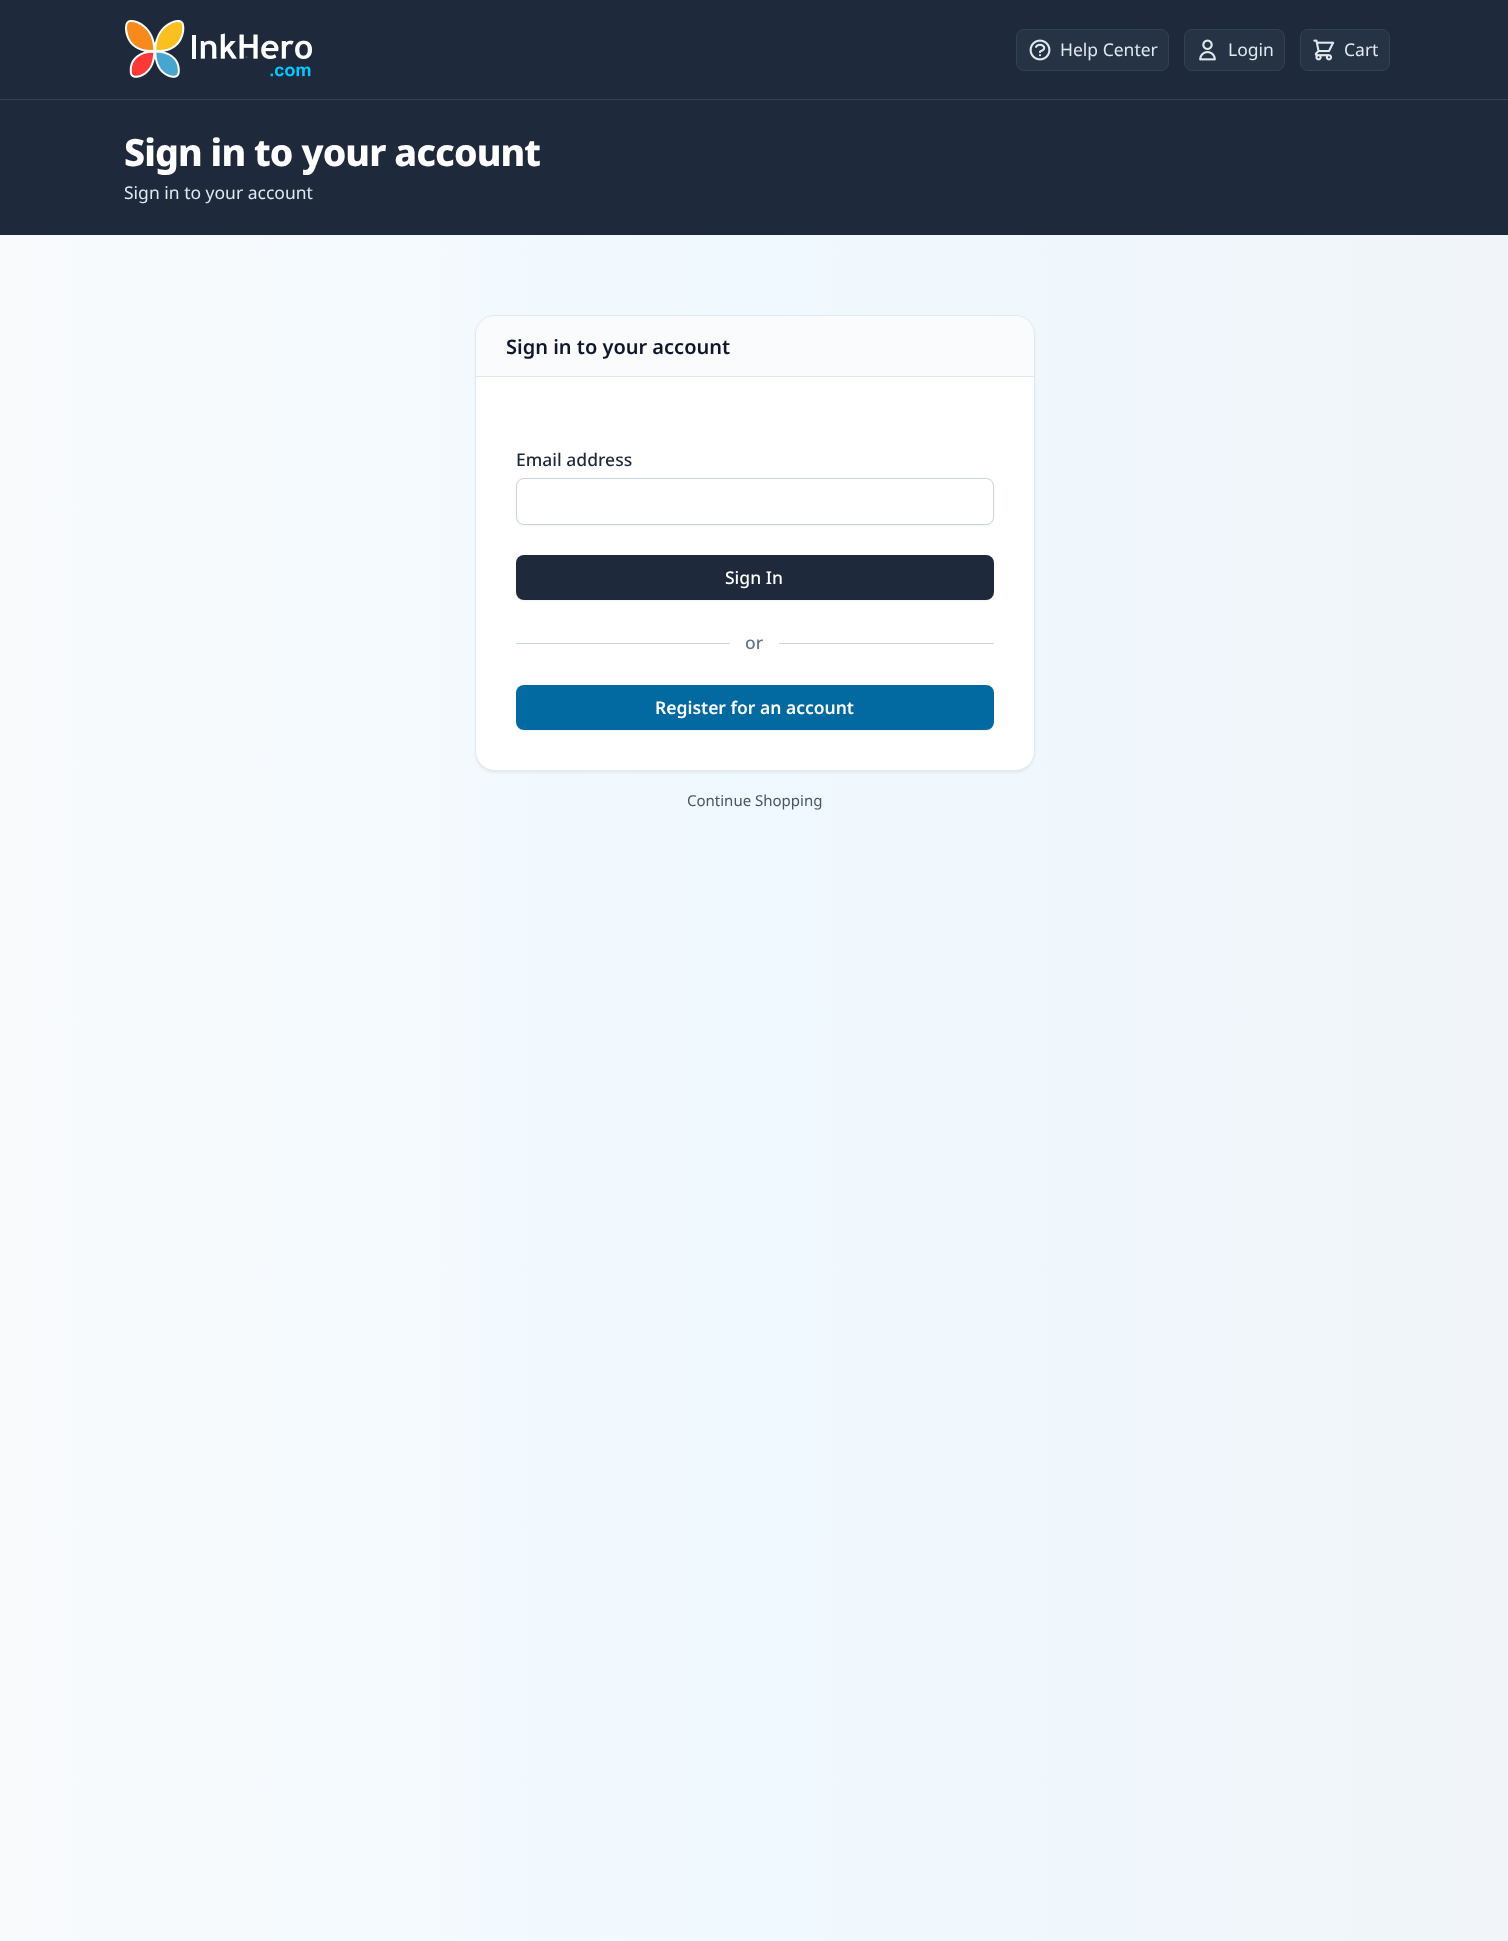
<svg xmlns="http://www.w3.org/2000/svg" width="1508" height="1941">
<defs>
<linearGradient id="g1" gradientUnits="userSpaceOnUse" x1="0" y1="1071" x2="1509" y2="1071"><stop offset="0" stop-color="#f8fafc"/><stop offset="0.5" stop-color="#f0f9ff"/><stop offset="1" stop-color="#f1f5f9"/></linearGradient>
</defs>
<rect width="100%" height="100%" fill="#1e293b"/>
<rect y="99" width="1508" height="1" fill="#334155"/>
<image x="125" y="20" width="187" height="58" href="media/1.png"/>
<rect x="1016.5" y="29.5" width="152" height="41" rx="7.5" fill="#263345" stroke="#334155"/>
<image x="1029" y="39" width="22" height="22" href="media/2.png"/>
<text x="1060" y="56" style="font-family:Noto Sans;font-size:17.5px;fill:#e2e8f0">Help Center</text>
<rect x="1184.5" y="29.5" width="100" height="41" rx="7.5" fill="#263345" stroke="#334155"/>
<image x="1199" y="39" width="17" height="22" href="media/3.png"/>
<text x="1228" y="56" style="font-family:Noto Sans;font-size:17.5px;fill:#e2e8f0">Login</text>
<rect x="1300.5" y="29.5" width="89" height="41" rx="7.5" fill="#263345" stroke="#334155"/>
<image x="1313" y="39" width="22" height="22" href="media/4.png"/>
<text x="1344" y="56" style="font-family:Noto Sans;font-size:17.5px;fill:#e2e8f0">Cart</text>
<rect y="235" width="1508" height="1706" fill="url(#g1)"/>
<text x="124" y="166" style="font-family:Noto Sans;font-size:37.5px;font-weight:800;letter-spacing:-0.9px;fill:#fff">Sign in to your account</text>
<text x="124" y="199" style="font-family:Noto Sans;font-size:17.5px;fill:#e2e8f0">Sign in to your account</text>
<rect x="475" y="316" width="560" height="457" rx="20" fill="#0000000d" filter="blur(1px)"/>
<rect x="475.5" y="315.5" width="559" height="455" rx="19.5" fill="#fff" stroke="#e2e8f0"/>
<path d="M495 316h520c10.5 0 19 8.5 19 19v41h-558v-41c0-10.5 8.5-19 19-19z" fill="#f8fafcb3"/>
<rect x="476" y="376" width="558" height="1" fill="#e2e8f0"/>
<text x="506" y="354" style="font-family:Noto Sans;font-size:20px;font-weight:600;fill:#0f172a">Sign in to your account</text>
<text x="516" y="466" style="font-family:Noto Sans;font-size:17.5px;font-weight:500;fill:#1e293b">Email address</text>
<rect x="516" y="479" width="478" height="47" rx="8" fill="#0000000d" filter="blur(1px)"/>
<rect x="516.5" y="478.5" width="477" height="46" rx="7.5" fill="#fff" stroke="#cbd5e1"/>
<rect x="516" y="556" width="478" height="45" rx="8" fill="#0000000d" filter="blur(1px)"/>
<rect x="516" y="555" width="478" height="45" rx="8" fill="#1e293b"/>
<text x="725" y="584" style="font-family:Noto Sans;font-size:17.5px;font-weight:500;fill:#fff">Sign In</text>
<rect x="516" y="643" width="214" height="1" fill="#cbd5e1"/>
<text x="745" y="649" style="font-family:Noto Sans;font-size:17.5px;font-weight:500;fill:#64748b">or</text>
<rect x="779" y="643" width="215" height="1" fill="#cbd5e1"/>
<rect x="516" y="686" width="478" height="45" rx="8" fill="#0000000d" filter="blur(1px)"/>
<rect x="516" y="685" width="478" height="45" rx="8" fill="#0369a1"/>
<text x="655" y="714" style="font-family:Noto Sans;font-size:17.5px;font-weight:600;fill:#fff">Register for an account</text>
<text x="687" y="806" style="font-family:Noto Sans;font-size:15px;fill:#475569">Continue Shopping</text>
</svg>
